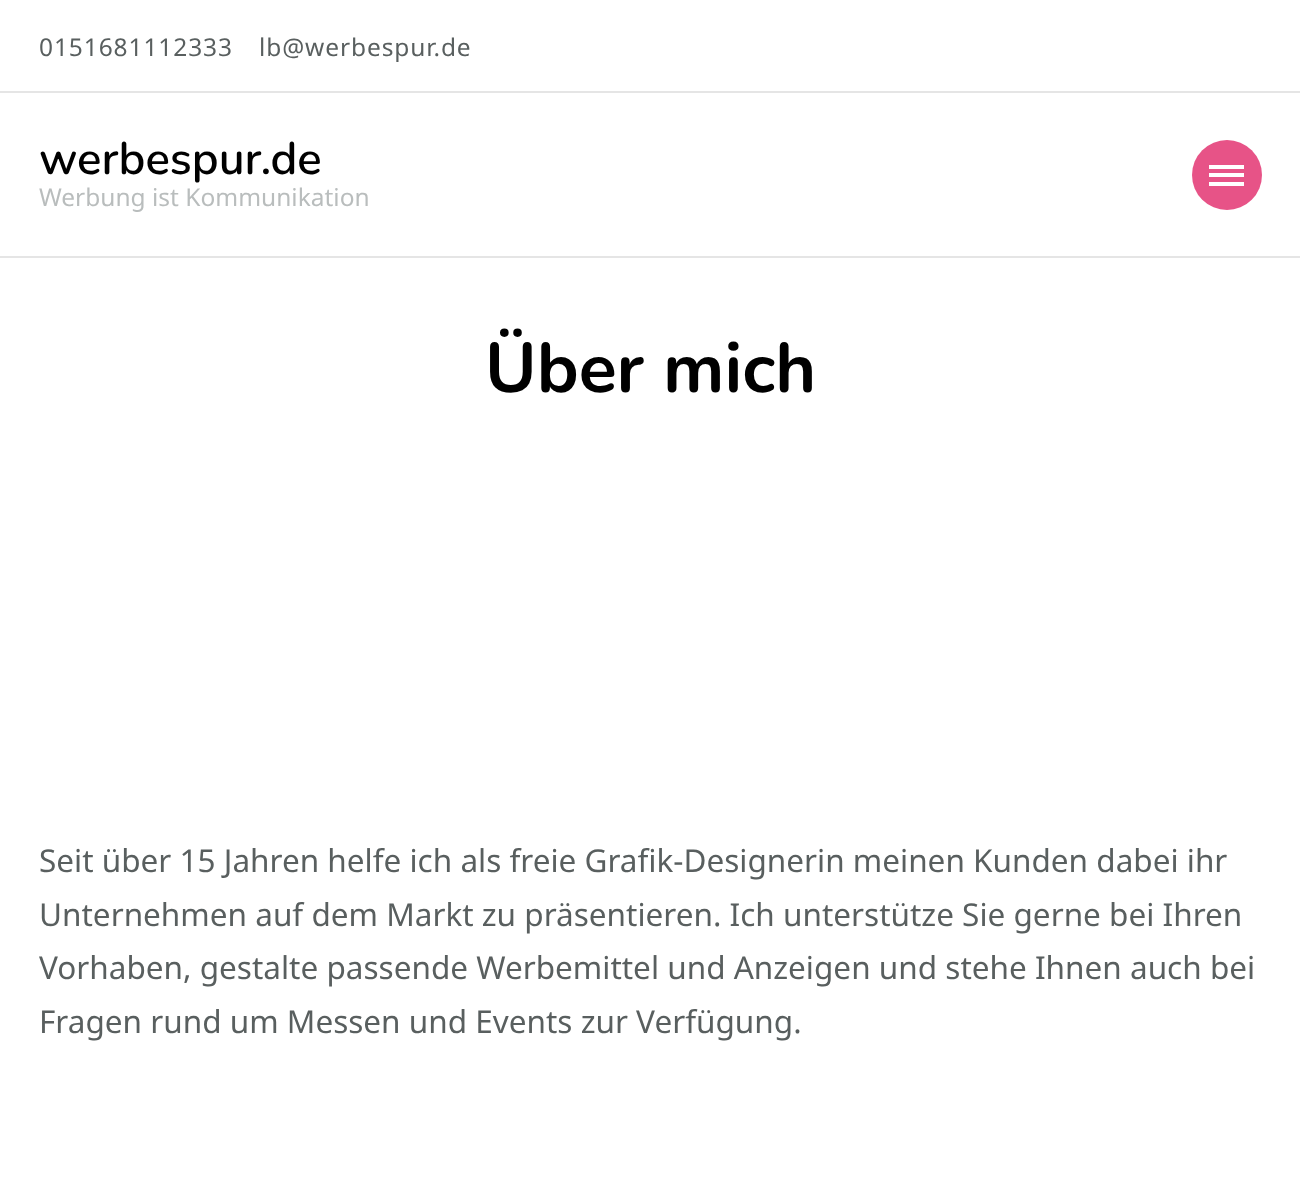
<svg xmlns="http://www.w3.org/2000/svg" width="1300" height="1180">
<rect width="100%" height="100%" fill="#fff"/>
<rect y="256" width="1300" height="2" fill="#e5e5e5"/>
<rect y="91" width="1300" height="2" fill="#e5e5e5"/>
<text x="39" y="56" style="font-family:Noto Sans;font-size:24.5px;letter-spacing:0.9px;fill:#595f5f">0151681112333</text>
<text x="259" y="56" style="font-family:Noto Sans;font-size:24.5px;letter-spacing:0.9px;fill:#595f5f">lb@werbespur.de</text>
<text x="39" y="174" style="font-family:Nunito;font-size:45.5px;font-weight:600;fill:#000">werbespur.de</text>
<text x="39" y="206" style="font-family:Noto Sans;font-size:24.5px;fill:#b9bdbd">Werbung ist Kommunikation</text>
<circle cx="1227" cy="175" r="35" fill="#e75387"/>
<rect x="1209" y="165" width="35" height="4" fill="#fff"/>
<rect x="1209" y="173" width="35" height="4" fill="#fff"/>
<rect x="1209" y="182" width="35" height="4" fill="#fff"/>
<text x="485" y="392" style="font-family:Nunito;font-size:70px;font-weight:bold;fill:#000">Über mich</text>
<text x="39" y="872" style="font-family:Noto Sans;font-size:31.5px;fill:#595f5f">Seit über 15 Jahren helfe ich als freie Grafik-Designerin meinen Kunden dabei ihr</text>
<text x="39" y="926" style="font-family:Noto Sans;font-size:31.5px;fill:#595f5f">Unternehmen auf dem Markt zu präsentieren. Ich unterstütze Sie gerne bei Ihren</text>
<text x="39" y="979" style="font-family:Noto Sans;font-size:31.5px;fill:#595f5f">Vorhaben, gestalte passende Werbemittel und Anzeigen und stehe Ihnen auch bei</text>
<text x="39" y="1033" style="font-family:Noto Sans;font-size:31.5px;fill:#595f5f">Fragen rund um Messen und Events zur Verfügung.</text>
</svg>
